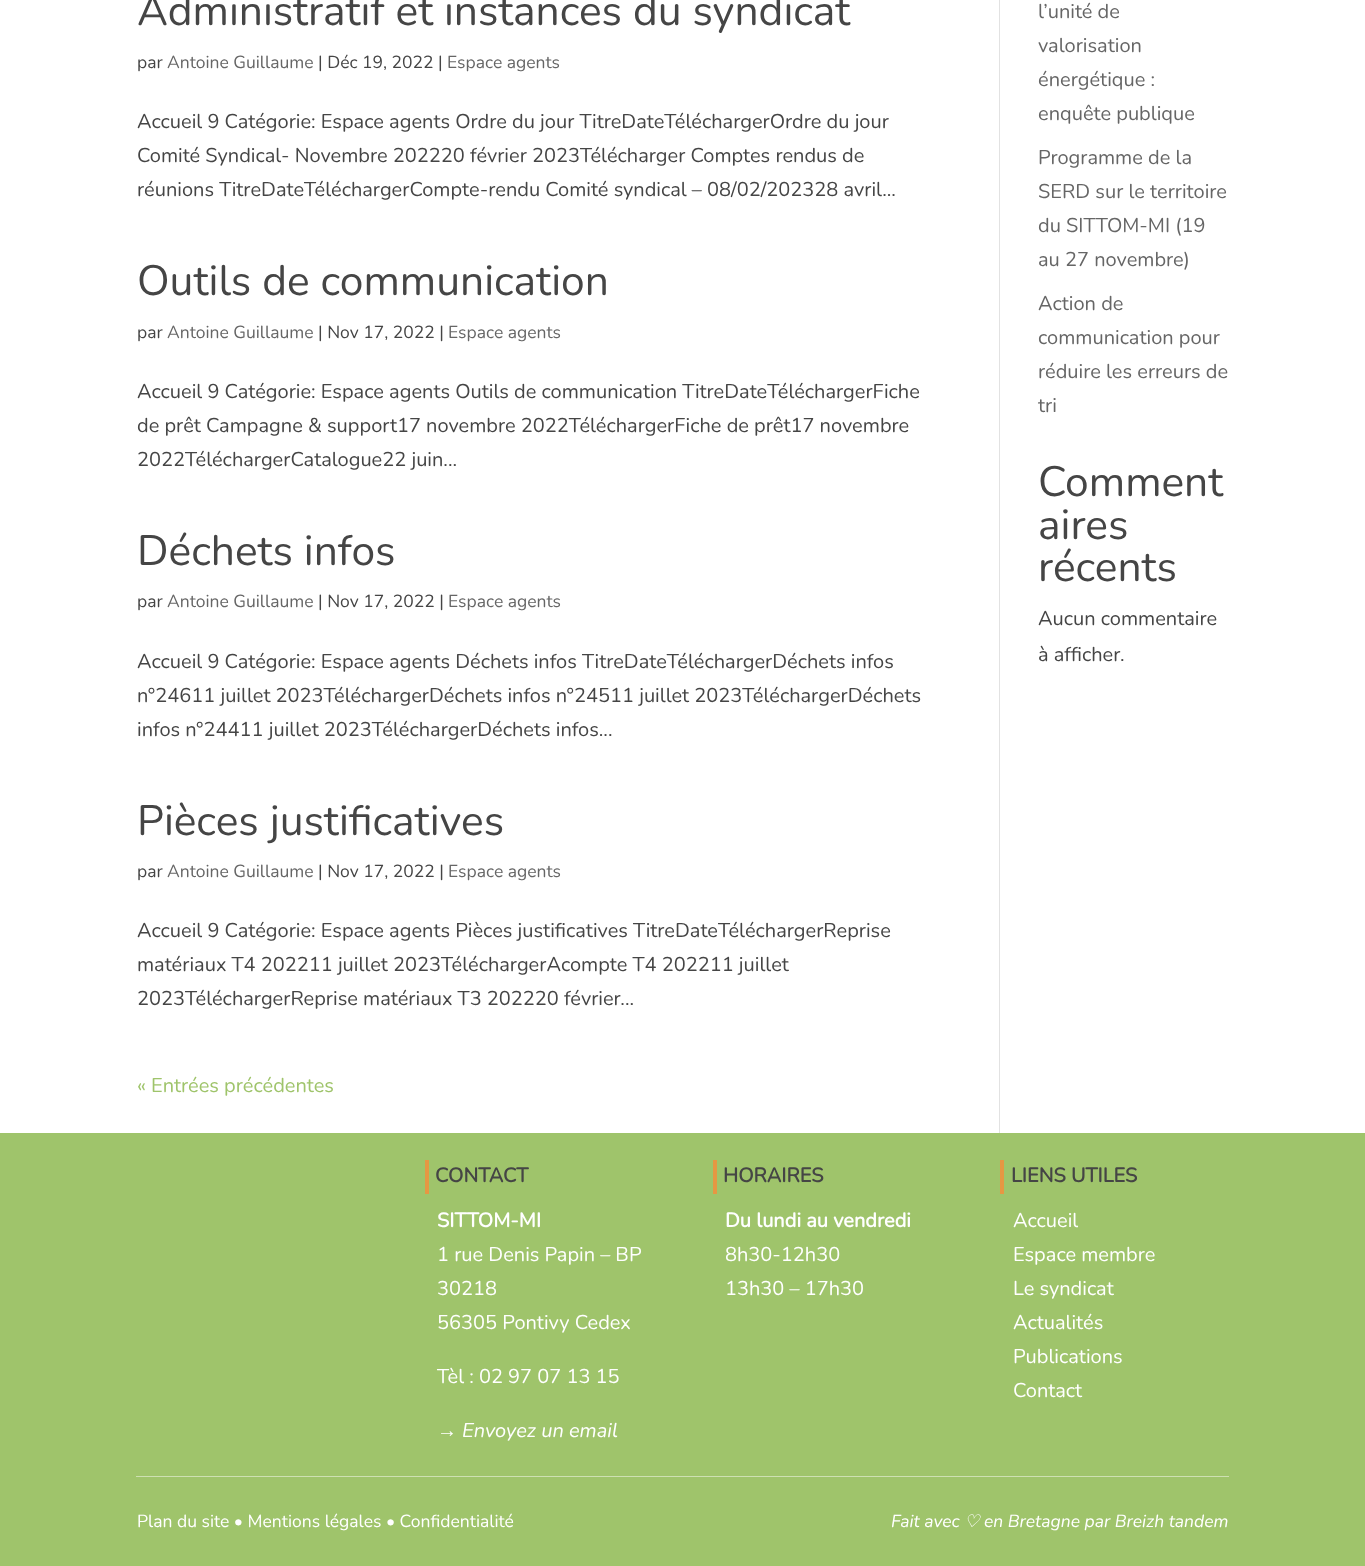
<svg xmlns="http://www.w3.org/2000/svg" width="1365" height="1566">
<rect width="100%" height="100%" fill="#fff"/>
<text x="137" y="25" style="font-family:Nunito;font-size:42.5px;font-weight:200;fill:#454545">Administratif et instances du syndicat</text>
<text x="137" y="68" style="font-family:Nunito;font-size:17.5px;font-weight:200;fill:#454545">par</text>
<text x="167" y="68" style="font-family:Nunito;font-size:17.5px;font-weight:200;fill:#666">Antoine Guillaume</text>
<text x="318" y="68" style="font-family:Nunito;font-size:17.5px;font-weight:200;fill:#454545">| Déc 19, 2022 |</text>
<text x="447" y="68" style="font-family:Nunito;font-size:17.5px;font-weight:200;fill:#666">Espace agents</text>
<text x="137" y="128" style="font-family:Nunito;font-size:20px;font-weight:200;fill:#454545">Accueil 9 Catégorie: Espace agents Ordre du jour TitreDateTéléchargerOrdre du jour</text>
<text x="137" y="162" style="font-family:Nunito;font-size:20px;font-weight:200;fill:#454545">Comité Syndical- Novembre 202220 février 2023Télécharger Comptes rendus de</text>
<text x="137" y="196" style="font-family:Nunito;font-size:20px;font-weight:200;fill:#454545">réunions TitreDateTéléchargerCompte-rendu Comité syndical – 08/02/202328 avril...</text>
<text x="137" y="295" style="font-family:Nunito;font-size:42.5px;font-weight:200;fill:#454545">Outils de communication</text>
<text x="137" y="338" style="font-family:Nunito;font-size:17.5px;font-weight:200;fill:#454545">par</text>
<text x="167" y="338" style="font-family:Nunito;font-size:17.5px;font-weight:200;fill:#666">Antoine Guillaume</text>
<text x="318" y="338" style="font-family:Nunito;font-size:17.5px;font-weight:200;fill:#454545">| Nov 17, 2022 |</text>
<text x="448" y="338" style="font-family:Nunito;font-size:17.5px;font-weight:200;fill:#666">Espace agents</text>
<text x="137" y="398" style="font-family:Nunito;font-size:20px;font-weight:200;fill:#454545">Accueil 9 Catégorie: Espace agents Outils de communication TitreDateTéléchargerFiche</text>
<text x="137" y="432" style="font-family:Nunito;font-size:20px;font-weight:200;fill:#454545">de prêt Campagne &amp; support17 novembre 2022TéléchargerFiche de prêt17 novembre</text>
<text x="137" y="466" style="font-family:Nunito;font-size:20px;font-weight:200;fill:#454545">2022TéléchargerCatalogue22 juin...</text>
<text x="137" y="565" style="font-family:Nunito;font-size:42.5px;font-weight:200;fill:#454545">Déchets infos</text>
<text x="137" y="607" style="font-family:Nunito;font-size:17.5px;font-weight:200;fill:#454545">par</text>
<text x="167" y="607" style="font-family:Nunito;font-size:17.5px;font-weight:200;fill:#666">Antoine Guillaume</text>
<text x="318" y="607" style="font-family:Nunito;font-size:17.5px;font-weight:200;fill:#454545">| Nov 17, 2022 |</text>
<text x="448" y="607" style="font-family:Nunito;font-size:17.5px;font-weight:200;fill:#666">Espace agents</text>
<text x="137" y="668" style="font-family:Nunito;font-size:20px;font-weight:200;fill:#454545">Accueil 9 Catégorie: Espace agents Déchets infos TitreDateTéléchargerDéchets infos</text>
<text x="137" y="702" style="font-family:Nunito;font-size:20px;font-weight:200;fill:#454545">n°24611 juillet 2023TéléchargerDéchets infos n°24511 juillet 2023TéléchargerDéchets</text>
<text x="137" y="736" style="font-family:Nunito;font-size:20px;font-weight:200;fill:#454545">infos n°24411 juillet 2023TéléchargerDéchets infos...</text>
<text x="137" y="835" style="font-family:Nunito;font-size:42.5px;font-weight:200;fill:#454545">Pièces justificatives</text>
<text x="137" y="877" style="font-family:Nunito;font-size:17.5px;font-weight:200;fill:#454545">par</text>
<text x="167" y="877" style="font-family:Nunito;font-size:17.5px;font-weight:200;fill:#666">Antoine Guillaume</text>
<text x="318" y="877" style="font-family:Nunito;font-size:17.5px;font-weight:200;fill:#454545">| Nov 17, 2022 |</text>
<text x="448" y="877" style="font-family:Nunito;font-size:17.5px;font-weight:200;fill:#666">Espace agents</text>
<text x="137" y="937" style="font-family:Nunito;font-size:20px;font-weight:200;fill:#454545">Accueil 9 Catégorie: Espace agents Pièces justificatives TitreDateTéléchargerReprise</text>
<text x="137" y="971" style="font-family:Nunito;font-size:20px;font-weight:200;fill:#454545">matériaux T4 202211 juillet 2023TéléchargerAcompte T4 202211 juillet</text>
<text x="137" y="1005" style="font-family:Nunito;font-size:20px;font-weight:200;fill:#454545">2023TéléchargerReprise matériaux T3 202220 février...</text>
<text x="137" y="1092" style="font-family:Nunito;font-size:20px;font-weight:200;fill:#9fc46b">« Entrées précédentes</text>
<text x="1038" y="18" style="font-family:Nunito;font-size:20px;font-weight:200;fill:#666">l’unité de</text>
<text x="1038" y="52" style="font-family:Nunito;font-size:20px;font-weight:200;fill:#666">valorisation</text>
<text x="1038" y="86" style="font-family:Nunito;font-size:20px;font-weight:200;fill:#666">énergétique :</text>
<text x="1038" y="120" style="font-family:Nunito;font-size:20px;font-weight:200;fill:#666">enquête publique</text>
<text x="1038" y="164" style="font-family:Nunito;font-size:20px;font-weight:200;fill:#666">Programme de la</text>
<text x="1038" y="198" style="font-family:Nunito;font-size:20px;font-weight:200;fill:#666">SERD sur le territoire</text>
<text x="1038" y="232" style="font-family:Nunito;font-size:20px;font-weight:200;fill:#666">du SITTOM-MI (19</text>
<text x="1038" y="266" style="font-family:Nunito;font-size:20px;font-weight:200;fill:#666">au 27 novembre)</text>
<text x="1038" y="310" style="font-family:Nunito;font-size:20px;font-weight:200;fill:#666">Action de</text>
<text x="1038" y="344" style="font-family:Nunito;font-size:20px;font-weight:200;fill:#666">communication pour</text>
<text x="1038" y="378" style="font-family:Nunito;font-size:20px;font-weight:200;fill:#666">réduire les erreurs de</text>
<text x="1038" y="412" style="font-family:Nunito;font-size:20px;font-weight:200;fill:#666">tri</text>
<text x="1038" y="496" style="font-family:Nunito;font-size:42.5px;font-weight:200;fill:#454545">Comment</text>
<text x="1038" y="539" style="font-family:Nunito;font-size:42.5px;font-weight:200;fill:#454545">aires</text>
<text x="1038" y="581" style="font-family:Nunito;font-size:42.5px;font-weight:200;fill:#454545">récents</text>
<text x="1038" y="625" style="font-family:Nunito;font-size:20px;font-weight:200;fill:#454545">Aucun commentaire</text>
<text x="1038" y="661" style="font-family:Nunito;font-size:20px;font-weight:200;fill:#454545">à afficher.</text>
<rect x="999" width="1" height="1133" fill="#e2e2e2"/>
<rect y="1133" width="1365" height="433" fill="#9fc46b"/>
<rect x="136" y="1476" width="1093" height="1" fill="#cde0b2"/>
<rect x="425" y="1160" width="4" height="34" fill="#e69743"/>
<text x="435" y="1182" style="font-family:Nunito;font-size:20px;font-weight:bold;fill:#454545">CONTACT</text>
<text x="437" y="1227" style="font-family:Nunito;font-size:20px;font-weight:bold;fill:#fff">SITTOM-MI</text>
<text x="437" y="1261" style="font-family:Nunito;font-size:20px;font-weight:200;fill:#fff">1 rue Denis Papin – BP</text>
<text x="437" y="1295" style="font-family:Nunito;font-size:20px;font-weight:200;fill:#fff">30218</text>
<text x="437" y="1329" style="font-family:Nunito;font-size:20px;font-weight:200;fill:#fff">56305 Pontivy Cedex</text>
<text x="437" y="1383" style="font-family:Nunito;font-size:20px;font-weight:200;fill:#fff">Tèl : 02 97 07 13 15</text>
<text x="437" y="1437" style="font-family:Liberation Sans;font-size:20px;font-style:italic;fill:#fff">→</text>
<text x="462" y="1437" style="font-family:Nunito;font-size:20px;font-weight:200;font-style:italic;fill:#fff">Envoyez un email</text>
<rect x="713" y="1160" width="4" height="34" fill="#e69743"/>
<text x="723" y="1182" style="font-family:Nunito;font-size:20px;font-weight:bold;fill:#454545">HORAIRES</text>
<text x="725" y="1227" style="font-family:Nunito;font-size:20px;font-weight:bold;fill:#fff">Du lundi au vendredi</text>
<text x="725" y="1261" style="font-family:Nunito;font-size:20px;font-weight:200;fill:#fff">8h30-12h30</text>
<text x="725" y="1295" style="font-family:Nunito;font-size:20px;font-weight:200;fill:#fff">13h30 – 17h30</text>
<rect x="1000" y="1160" width="4" height="34" fill="#e69743"/>
<text x="1011" y="1182" style="font-family:Nunito;font-size:20px;font-weight:bold;fill:#454545">LIENS UTILES</text>
<text x="1013" y="1227" style="font-family:Nunito;font-size:20px;font-weight:200;fill:#fff">Accueil</text>
<text x="1013" y="1261" style="font-family:Nunito;font-size:20px;font-weight:200;fill:#fff">Espace membre</text>
<text x="1013" y="1295" style="font-family:Nunito;font-size:20px;font-weight:200;fill:#fff">Le syndicat</text>
<text x="1013" y="1329" style="font-family:Nunito;font-size:20px;font-weight:200;fill:#fff">Actualités</text>
<text x="1013" y="1363" style="font-family:Nunito;font-size:20px;font-weight:200;fill:#fff">Publications</text>
<text x="1013" y="1397" style="font-family:Nunito;font-size:20px;font-weight:200;fill:#fff">Contact</text>
<text x="137" y="1527" style="font-family:Nunito;font-size:17.5px;font-weight:200;fill:#fff">Plan du site • Mentions légales • Confidentialité</text>
<text x="891" y="1527" style="font-family:Nunito;font-size:17.5px;font-weight:200;font-style:italic;fill:#fff">Fait avec</text>
<text x="964" y="1527" style="font-family:DejaVu Sans;font-size:17.5px;font-style:italic;fill:#fff">♡</text>
<text x="984" y="1527" style="font-family:Nunito;font-size:17.5px;font-weight:200;font-style:italic;fill:#fff">en Bretagne par Breizh tandem</text>
</svg>
